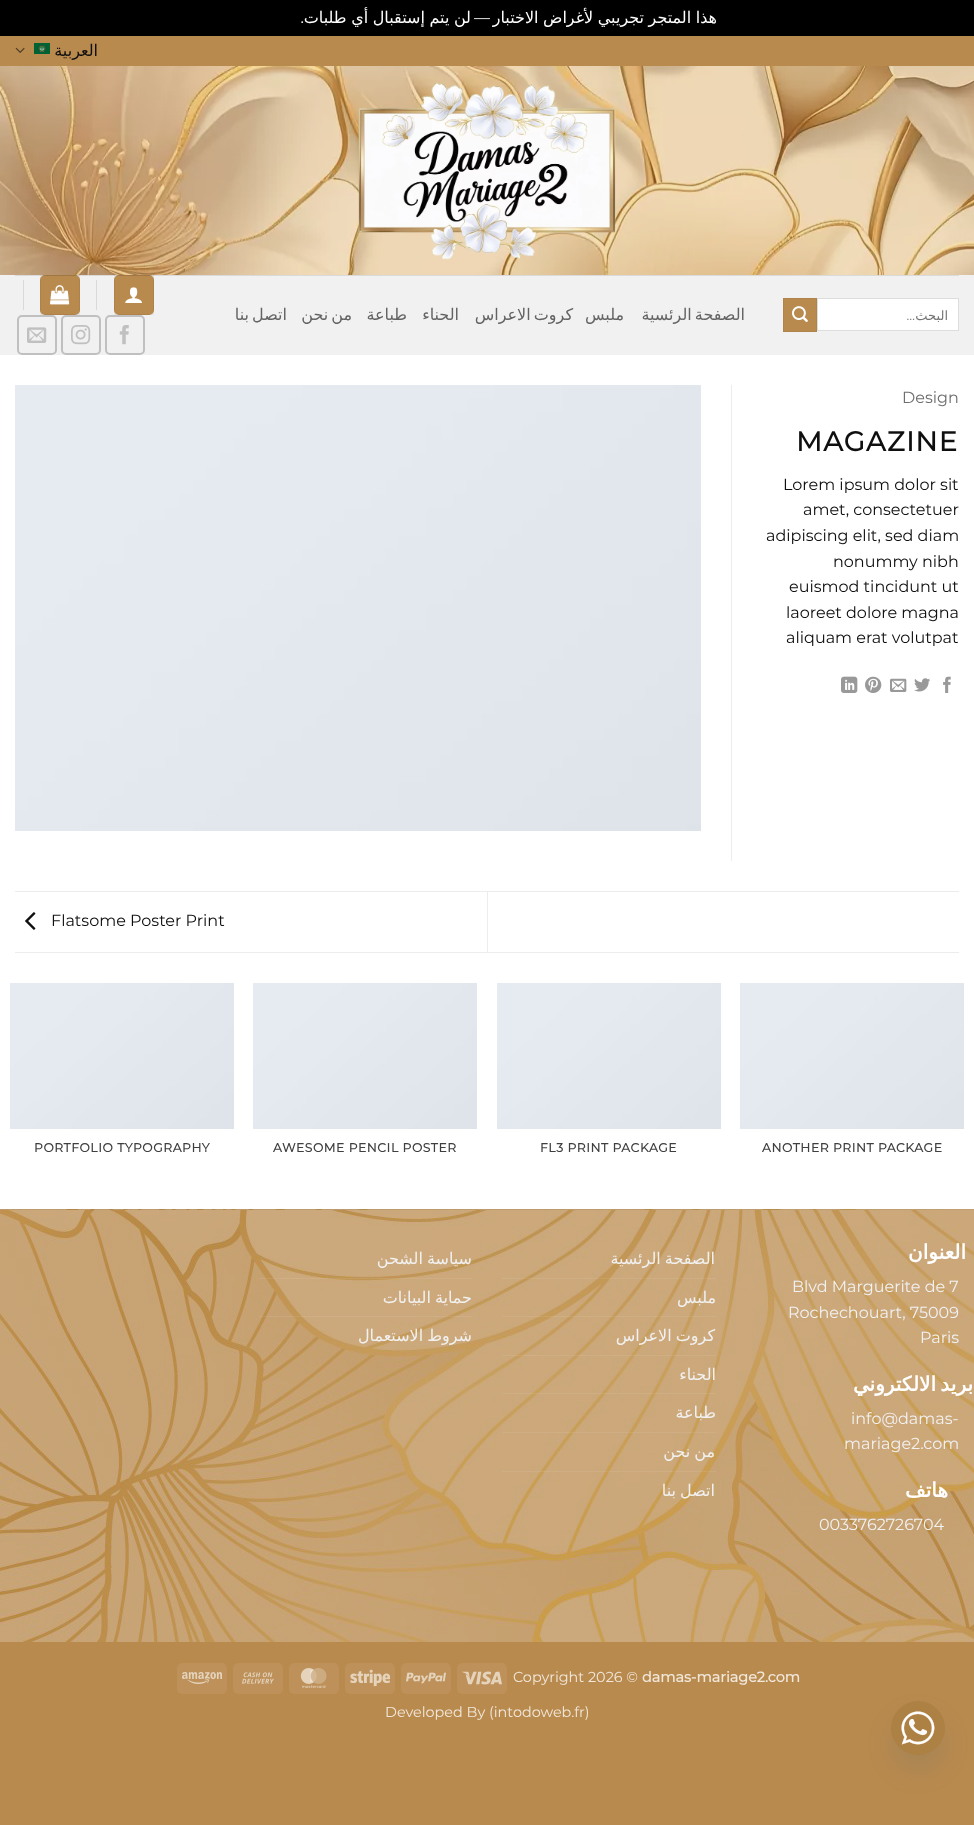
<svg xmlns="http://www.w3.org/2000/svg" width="974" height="1825">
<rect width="100%" height="100%" fill="#b98a4e"/>
<rect width="974" height="36" fill="#000"/>
<text x="471" y="23" word-spacing="-0.5" style="font-family:DejaVu Sans;font-size:16px;direction:rtl;fill:#fff">لن يتم إستقبال أي طلبات</text>
<text x="490" y="23" style="font-family:Montserrat;font-size:16px;font-weight:100;direction:rtl;fill:#fff">—</text>
<text x="717" y="23" word-spacing="-0.5" style="font-family:DejaVu Sans;font-size:16px;direction:rtl;fill:#fff">هذا المتجر تجريبي لأغراض الاختبار</text>
<text x="304" y="23" style="font-family:Montserrat;font-size:16px;font-weight:100;direction:rtl;fill:#fff">.</text>
<rect y="355" width="974" height="854" fill="#fff"/>
<image x="15" y="47" width="10" height="6" href="media/1.png"/>
<image x="34" y="43" width="16" height="11" href="media/2.png"/>
<text x="98" y="56" style="font-family:DejaVu Sans;font-size:16px;direction:rtl;fill:#0f0f0f">العربية</text>
<image x="0" y="66" width="974" height="209" href="media/3.png"/>
<image x="358" y="82" width="258" height="178" href="media/4.png"/>
<rect y="275" width="974" height="80" fill="#f1f1f1"/>
<rect x="40" y="275" width="40" height="40" rx="5" fill="#b98a4e"/>
<rect x="40.5" y="275.5" width="39" height="39" fill="none" stroke="#0000000d"/>
<rect x="114" y="275" width="40" height="40" rx="5" fill="#b98a4e"/>
<rect x="114.5" y="275.5" width="39" height="39" fill="none" stroke="#0000000d"/>
<rect x="15" y="275" width="944" height="1" fill="#0f0f0f1a"/>
<rect x="23" y="280" width="1" height="30" fill="#d9d9d9"/>
<image x="50" y="285" width="20" height="20" href="media/5.png"/>
<rect x="96" y="280" width="1" height="30" fill="#d9d9d9"/>
<image x="125" y="287" width="17" height="16" href="media/6.png"/>
<rect x="18" y="316" width="38" height="38" rx="4" fill="none" stroke="#c0c0c0" stroke-width="2"/>
<image x="27" y="327" width="20" height="16" href="media/7.png"/>
<rect x="62" y="316" width="38" height="38" rx="4" fill="none" stroke="#c0c0c0" stroke-width="2"/>
<image x="71" y="325" width="20" height="20" href="media/8.png"/>
<rect x="106" y="316" width="38" height="38" rx="4" fill="none" stroke="#c0c0c0" stroke-width="2"/>
<image x="119" y="325" width="10" height="20" href="media/9.png"/>
<text x="287" y="320" word-spacing="-2" style="font-family:DejaVu Sans;font-size:16px;letter-spacing:0.25px;direction:rtl;fill:#636363">اتصل بنا</text>
<text x="352" y="320" word-spacing="-2" style="font-family:DejaVu Sans;font-size:16px;letter-spacing:0.25px;direction:rtl;fill:#636363">من نحن</text>
<text x="407" y="320" style="font-family:DejaVu Sans;font-size:16px;letter-spacing:0.25px;direction:rtl;fill:#636363">طباعة</text>
<text x="459" y="320" style="font-family:DejaVu Sans;font-size:16px;letter-spacing:0.25px;direction:rtl;fill:#636363">الحناء</text>
<text x="573" y="320" word-spacing="-2" style="font-family:DejaVu Sans;font-size:16px;letter-spacing:0.25px;direction:rtl;fill:#636363">كروت الاعراس</text>
<text x="624" y="320" style="font-family:DejaVu Sans;font-size:16px;letter-spacing:0.25px;direction:rtl;fill:#636363">ملبس</text>
<text x="745" y="320" word-spacing="-2" style="font-family:DejaVu Sans;font-size:16px;letter-spacing:0.25px;direction:rtl;fill:#636363">الصفحة الرئسية</text>
<rect x="783.5" y="298.5" width="33" height="33" fill="#b98a4e" stroke="#b0834a"/>
<image x="792" y="306" width="16" height="16" href="media/10.png"/>
<rect x="817.5" y="298.5" width="141" height="32" fill="#fff" stroke="#ddd"/>
<text x="915" y="320" style="font-family:Montserrat;font-size:13px;font-weight:100;direction:rtl;fill:#757575">…</text>
<text x="948" y="320" style="font-family:DejaVu Sans;font-size:13px;direction:rtl;fill:#757575">البحث</text>
<image x="15" y="385" width="686" height="446" href="media/11.png"/>
<rect x="731" y="385" width="1" height="476" fill="#ececec"/>
<text x="902" y="403" style="font-family:Montserrat;font-size:16px;font-weight:100;fill:#6e6e6e">Design</text>
<text x="796" y="451" style="font-family:Montserrat;font-size:27.25px;font-weight:bold;letter-spacing:1.25px;fill:#0f0f0f">MAGAZINE</text>
<text x="783" y="490" style="font-family:Montserrat;font-size:16px;font-weight:100;fill:#0f0f0f">Lorem ipsum dolor sit</text>
<text x="803" y="515" style="font-family:Montserrat;font-size:16px;font-weight:100;fill:#0f0f0f">amet, consectetuer</text>
<text x="766" y="541" style="font-family:Montserrat;font-size:16px;font-weight:100;fill:#0f0f0f">adipiscing elit, sed diam</text>
<text x="833" y="567" style="font-family:Montserrat;font-size:16px;font-weight:100;fill:#0f0f0f">nonummy nibh</text>
<text x="789" y="592" style="font-family:Montserrat;font-size:16px;font-weight:100;fill:#0f0f0f">euismod tincidunt ut</text>
<text x="786" y="618" style="font-family:Montserrat;font-size:16px;font-weight:100;fill:#0f0f0f">laoreet dolore magna</text>
<text x="786" y="643" style="font-family:Montserrat;font-size:16px;font-weight:100;fill:#0f0f0f">aliquam erat volutpat</text>
<image x="841" y="676" width="17" height="17" href="media/12.png"/>
<image x="865" y="676" width="17" height="17" href="media/13.png"/>
<image x="890" y="678" width="17" height="14" href="media/14.png"/>
<image x="914" y="678" width="16" height="14" href="media/15.png"/>
<image x="943" y="676" width="8" height="17" href="media/16.png"/>
<rect x="15" y="891" width="944" height="1" fill="#ececec"/>
<rect x="15" y="952" width="944" height="1" fill="#ececec"/>
<rect x="487" y="892" width="1" height="60" fill="#ececec"/>
<image x="25" y="912" width="11" height="18" href="media/17.png"/>
<text x="51" y="926" style="font-family:Montserrat;font-size:16px;font-weight:100;fill:#0f0f0f">Flatsome Poster Print</text>
<image x="10" y="983" width="224" height="146" href="media/18.png"/>
<text x="34" y="1152" style="font-family:Montserrat;font-size:12.25px;font-weight:bold;letter-spacing:0.6px;fill:#3f3f3f">PORTFOLIO TYPOGRAPHY</text>
<image x="253" y="983" width="224" height="146" href="media/18.png"/>
<text x="273" y="1152" style="font-family:Montserrat;font-size:12.25px;font-weight:bold;letter-spacing:0.6px;fill:#3f3f3f">AWESOME PENCIL POSTER</text>
<image x="497" y="983" width="224" height="146" href="media/18.png"/>
<text x="540" y="1152" style="font-family:Montserrat;font-size:12.25px;font-weight:bold;letter-spacing:0.6px;fill:#3f3f3f">FL3 PRINT PACKAGE</text>
<image x="740" y="983" width="224" height="146" href="media/18.png"/>
<text x="762" y="1152" style="font-family:Montserrat;font-size:12.25px;font-weight:bold;letter-spacing:0.6px;fill:#3f3f3f">ANOTHER PRINT PACKAGE</text>
<image x="0" y="1209" width="974" height="433" href="media/19.png"/>
<rect y="1209" width="974" height="1" fill="#0000000d"/>
<text x="472" y="1264" word-spacing="-1" style="font-family:DejaVu Sans;font-size:16px;direction:rtl;fill:#f1f1f1">سياسة الشحن</text>
<rect x="259" y="1278" width="213" height="1" fill="#ffffff14"/>
<text x="472" y="1303" word-spacing="-1" style="font-family:DejaVu Sans;font-size:16px;direction:rtl;fill:#f1f1f1">حماية البيانات</text>
<rect x="259" y="1316" width="213" height="1" fill="#ffffff14"/>
<text x="472" y="1341" word-spacing="-1" style="font-family:DejaVu Sans;font-size:16px;direction:rtl;fill:#f1f1f1">شروط الاستعمال</text>
<text x="715" y="1264" word-spacing="-1" style="font-family:DejaVu Sans;font-size:16px;direction:rtl;fill:#f1f1f1">الصفحة الرئسية</text>
<rect x="502" y="1278" width="214" height="1" fill="#ffffff14"/>
<text x="716" y="1303" style="font-family:DejaVu Sans;font-size:16px;direction:rtl;fill:#f1f1f1">ملبس</text>
<rect x="502" y="1316" width="214" height="1" fill="#ffffff14"/>
<text x="715" y="1341" word-spacing="-1" style="font-family:DejaVu Sans;font-size:16px;direction:rtl;fill:#f1f1f1">كروت الاعراس</text>
<rect x="502" y="1355" width="214" height="1" fill="#ffffff14"/>
<text x="716" y="1380" style="font-family:DejaVu Sans;font-size:16px;direction:rtl;fill:#f1f1f1">الحناء</text>
<rect x="502" y="1393" width="214" height="1" fill="#ffffff14"/>
<text x="716" y="1418" style="font-family:DejaVu Sans;font-size:16px;direction:rtl;fill:#f1f1f1">طباعة</text>
<rect x="502" y="1432" width="214" height="1" fill="#ffffff14"/>
<text x="715" y="1457" word-spacing="-1" style="font-family:DejaVu Sans;font-size:16px;direction:rtl;fill:#f1f1f1">من نحن</text>
<rect x="502" y="1471" width="214" height="1" fill="#ffffff14"/>
<text x="715" y="1496" word-spacing="-1" style="font-family:DejaVu Sans;font-size:16px;direction:rtl;fill:#f1f1f1">اتصل بنا</text>
<text x="966" y="1259" style="font-family:DejaVu Sans;font-size:20px;font-weight:bold;letter-spacing:1px;direction:rtl;fill:#fff">العنوان</text>
<text x="792" y="1292" style="font-family:Montserrat;font-size:16px;font-weight:100;fill:#f1f1f1">Blvd Marguerite de 7</text>
<text x="788" y="1318" style="font-family:Montserrat;font-size:16px;font-weight:100;fill:#f1f1f1">Rochechouart, 75009</text>
<text x="920" y="1343" style="font-family:Montserrat;font-size:16px;font-weight:100;fill:#f1f1f1">Paris</text>
<text x="973" y="1391" word-spacing="-2" style="font-family:DejaVu Sans;font-size:20px;font-weight:bold;letter-spacing:1px;direction:rtl;fill:#fff">بريد الالكتروني</text>
<text x="851" y="1424" style="font-family:Montserrat;font-size:16px;font-weight:100;fill:#f1f1f1">info@damas-</text>
<text x="844" y="1449" style="font-family:Montserrat;font-size:16px;font-weight:100;fill:#f1f1f1">mariage2.com</text>
<text x="948" y="1497" style="font-family:DejaVu Sans;font-size:20px;font-weight:bold;letter-spacing:1px;direction:rtl;fill:#fff">هاتف</text>
<text x="819" y="1530" style="font-family:Montserrat;font-size:16px;font-weight:100;fill:#f1f1f1">0033762726704</text>
<rect x="177" y="1663" width="50" height="31" rx="5" fill="#bd9159"/>
<image x="182" y="1672" width="40" height="12" href="media/20.png"/>
<rect x="233" y="1663" width="50" height="31" rx="5" fill="#bd9159"/>
<image x="242" y="1672" width="32" height="12" href="media/21.png"/>
<rect x="289" y="1663" width="50" height="31" rx="5" fill="#bd9159"/>
<image x="300" y="1668" width="27" height="20" href="media/22.png"/>
<rect x="345" y="1663" width="50" height="31" rx="5" fill="#bd9159"/>
<image x="350" y="1669" width="40" height="18" href="media/23.png"/>
<rect x="401" y="1663" width="50" height="31" rx="5" fill="#bd9159"/>
<image x="406" y="1672" width="40" height="12" href="media/24.png"/>
<rect x="457" y="1663" width="50" height="31" rx="5" fill="#bd9159"/>
<image x="462" y="1671" width="40" height="14" href="media/25.png"/>
<text x="513" y="1682" style="font-family:Montserrat;font-size:14.4px;font-weight:100;fill:#f1e8dc">Copyright 2026 ©</text>
<text x="642" y="1682" style="font-family:Montserrat;font-size:14.4px;font-weight:bold;fill:#f1e8dc">damas-mariage2.com</text>
<text x="385" y="1717" style="font-family:Montserrat;font-size:14.4px;font-weight:100;fill:#f1e8dc">Developed By (intodoweb.fr)</text>
<rect x="891" y="1717" width="54" height="54" rx="27" fill="#49687e29" filter="blur(12px)"/>
<circle cx="918" cy="1728" r="27" fill="#ad8044"/>
<image x="901" y="1711" width="34" height="34" href="media/26.png"/>
</svg>
